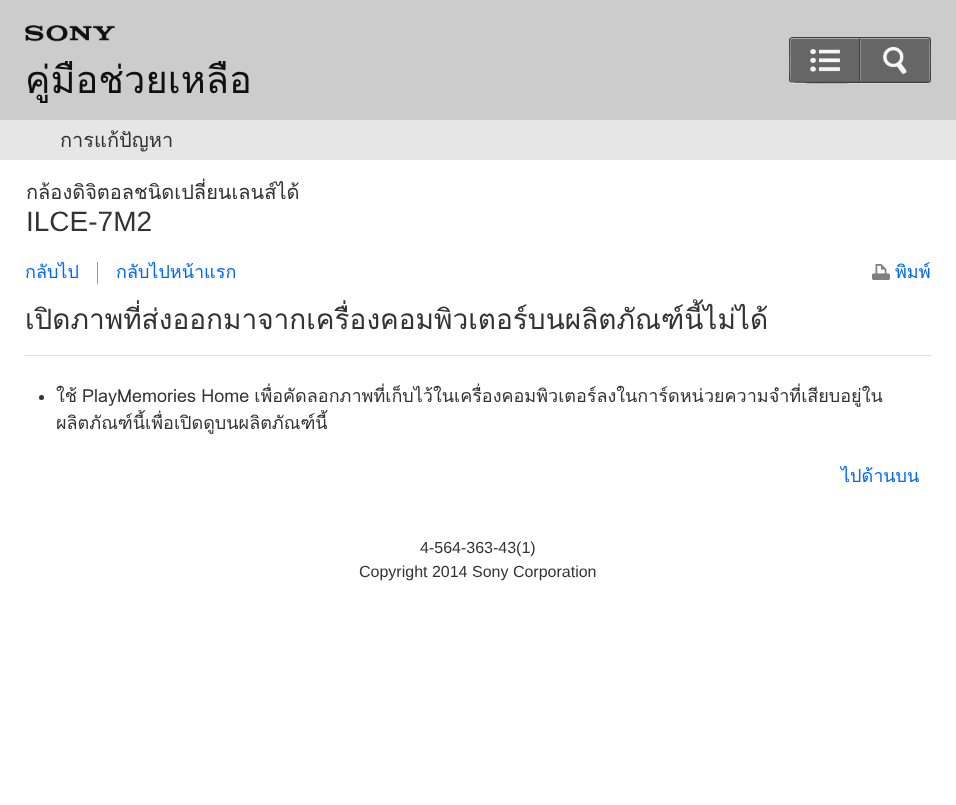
<svg xmlns="http://www.w3.org/2000/svg" width="956" height="805">
<rect width="100%" height="100%" fill="#fff"/>
<rect width="956" height="120" fill="#ccc"/>
<image x="25" y="25" width="90" height="17" href="media/1.png"/>
<text x="25" y="93" style="font-family:Loma;font-size:38px;fill:#101010">คู่มือช่วยเหลือ</text>
<path d="M789 80v1c0 2 1 3 3 3h68v-1h-68c-2 0-3-1-3-3z" fill="#d9d9d9"/>
<path d="M792 37h68v46c-7 0-68 1-70-1l-1-1v-42l1-1zm0 1h68v44h-68c-1 0-2-1-2-2v-40c0-1 1-2 2-2z" fill="#404040" fill-rule="evenodd"/>
<path d="M792 38h68v44h-68c-1 0-2-1-2-2v-40c0-1 1-2 2-2z" fill="#666"/>
<path d="M792 38l-1 1l1 1v-1h67l1-1z" fill="#a8a8a8"/>
<path d="M860 38l-1 1v42l1 1z" fill="#404040"/>
<path d="M860 82l-1-1c-6 0-66 1-68 0l1 1z" fill="#5c5c5c"/>
<path d="M790 40c0 5-1 40 1 41v-2v-39h1l-1-1z" fill="#8d8d8d"/>
<image x="810" y="49" width="30" height="23" href="media/2.png"/>
<path d="M860 83v1h68c2 0 3-1 3-3v-1c0 2-1 3-3 3z" fill="#d9d9d9"/>
<path d="M860 37h68c2 0 3 1 3 3v40c0 2-1 3-3 3h-68zm0 1h68c1 0 2 1 2 2v40c0 1-1 2-2 2h-68z" fill="#404040" fill-rule="evenodd"/>
<path d="M860 38h68c1 0 2 1 2 2v40c0 1-1 2-2 2h-68z" fill="#666"/>
<path d="M860 38l1 1h68l-1-1z" fill="#a8a8a8"/>
<path d="M930 80c0-5 1-40-1-41v42z" fill="#8d8d8d"/>
<path d="M928 82l1-1h-68l-1 1z" fill="#5c5c5c"/>
<path d="M860 38v44l1-1v-42z" fill="#8f8f8f"/>
<image x="883" y="47" width="24" height="27" href="media/3.png"/>
<rect y="120" width="956" height="40" fill="#e6e6e6"/>
<text x="60" y="147" style="font-family:Loma;font-size:20px;fill:#333">การแก้ปัญหา</text>
<text x="26" y="199" style="font-family:Loma;font-size:20px;fill:#333">กล้องดิจิตอลชนิดเปลี่ยนเลนส์ได้</text>
<text x="26" y="231" style="font-family:Liberation Sans;font-size:28px;fill:#333">ILCE-7M2</text>
<text x="25" y="278" style="font-family:Loma;font-size:18px;fill:#06f">กลับไป</text>
<rect x="97" y="262" width="1" height="22" fill="#999"/>
<text x="116" y="278" style="font-family:Loma;font-size:18px;fill:#06f">กลับไปหน้าแรก</text>
<image x="872" y="264" width="18" height="16" href="media/4.png"/>
<text x="895" y="278" style="font-family:Loma;font-size:18px;fill:#06f">พิมพ์</text>
<rect x="25" y="355" width="906" height="1" fill="#ddd"/>
<text x="25" y="329" style="font-family:Loma;font-size:28px;fill:#333">เปิดภาพที่ส่งออกมาจากเครื่องคอมพิวเตอร์บนผลิตภัณฑ์นี้ไม่ได้</text>
<circle cx="41.5" cy="397.5" r="2.5" fill="#333"/>
<text x="56" y="402" word-spacing="-1" style="font-family:Loma;font-size:18px;fill:#333">ใช้ PlayMemories Home เพื่อคัดลอกภาพที่เก็บไว้ในเครื่องคอมพิวเตอร์ลงในการ์ดหน่วยความจำที่เสียบอยู่ใน</text>
<text x="56" y="429" style="font-family:Loma;font-size:18px;fill:#333">ผลิตภัณฑ์นี้เพื่อเปิดดูบนผลิตภัณฑ์นี้</text>
<text x="841" y="482" style="font-family:Loma;font-size:18px;fill:#06f">ไปด้านบน</text>
<text x="420" y="553" style="font-family:Liberation Sans;font-size:16px;fill:#333">4-564-363-43(1)</text>
<text x="359" y="577" style="font-family:Liberation Sans;font-size:16px;fill:#333">Copyright 2014 Sony Corporation</text>
</svg>
